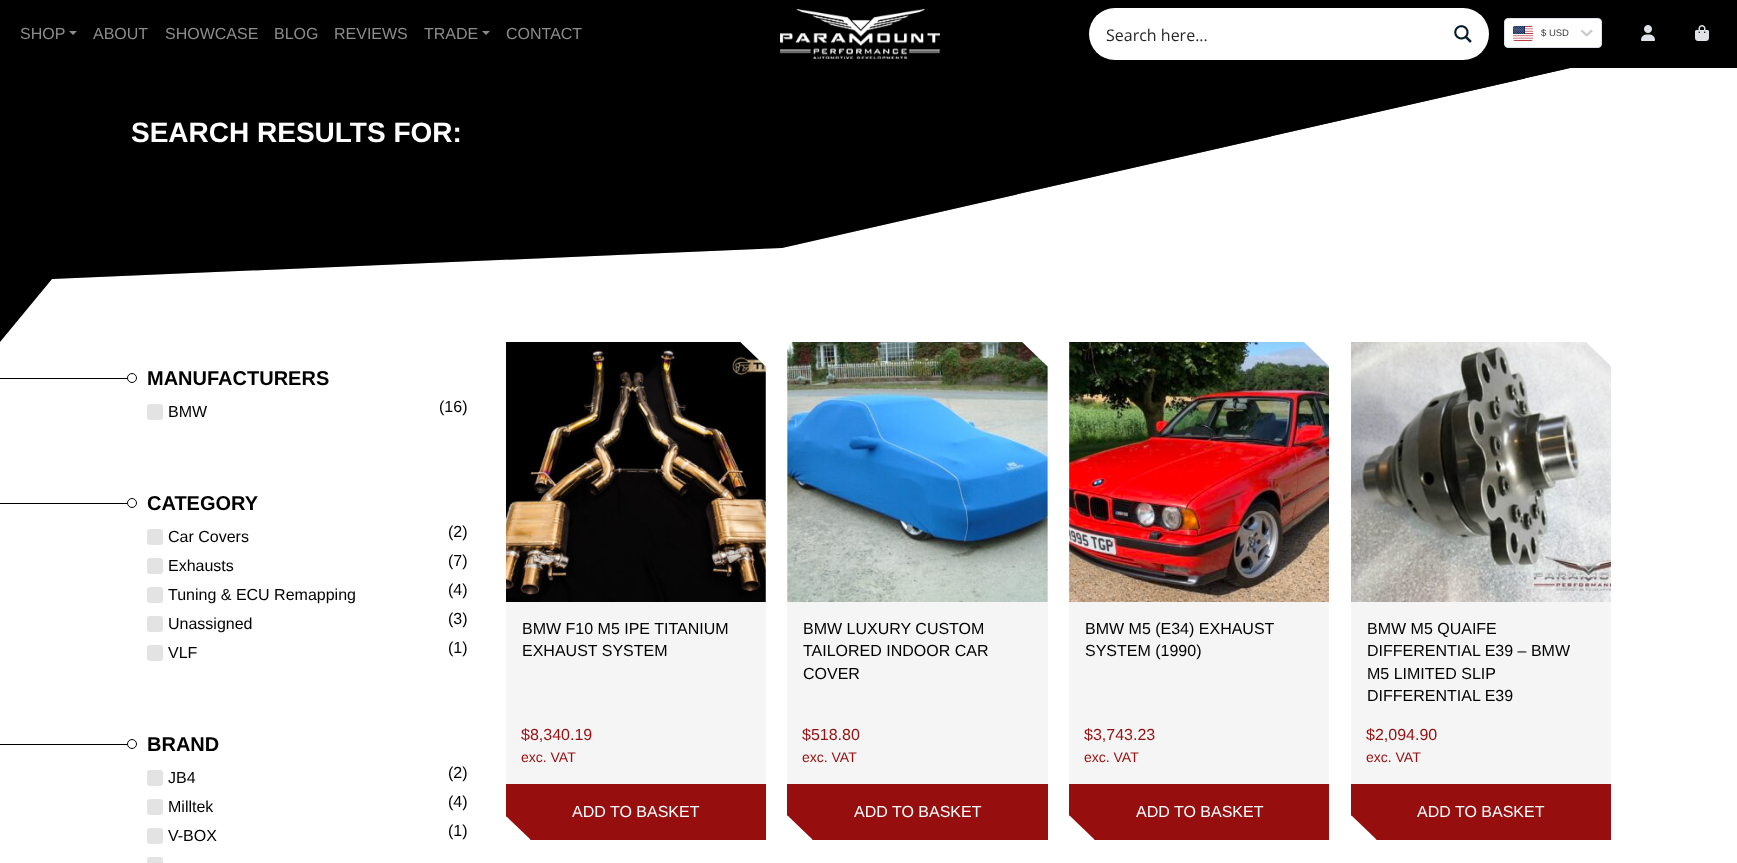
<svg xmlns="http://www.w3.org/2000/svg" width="1737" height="863">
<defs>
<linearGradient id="g1" gradientUnits="userSpaceOnUse" x1="869" y1="342" x2="869" y2="30"><stop offset="0" stop-color="#000" stop-opacity="0"/><stop offset="1" stop-color="#000"/></linearGradient>
</defs>
<rect width="100%" height="100%" fill="#fff"/>
<path d="M0 30v312l52-63l730-31l955-218z" fill="#000"/>
<path d="M0 30v312l52-63l730-31l955-218z" fill="url(#g1)"/>
<rect width="1737" height="68" fill="#000"/>
<text x="20" y="39" style="font-family:Liberation Sans;font-size:16px;fill:#8c8c8c">SHOP</text>
<path d="M69 31h8l-4 4z" fill="#8c8c8c"/>
<text x="93" y="39" style="font-family:Liberation Sans;font-size:16px;fill:#8c8c8c">ABOUT</text>
<text x="165" y="39" style="font-family:Liberation Sans;font-size:16px;fill:#8c8c8c">SHOWCASE</text>
<text x="274" y="39" style="font-family:Liberation Sans;font-size:16px;fill:#8c8c8c">BLOG</text>
<text x="334" y="39" style="font-family:Liberation Sans;font-size:16px;fill:#8c8c8c">REVIEWS</text>
<text x="424" y="39" style="font-family:Liberation Sans;font-size:16px;fill:#8c8c8c">TRADE</text>
<path d="M482 31h8l-4 4z" fill="#8c8c8c"/>
<text x="506" y="39" style="font-family:Liberation Sans;font-size:16px;fill:#8c8c8c">CONTACT</text>
<image x="780" y="9" width="160" height="50" href="media/1.png"/>
<rect x="1089" y="8" width="400" height="52" rx="26" fill="#fff"/>
<text x="1106" y="41" style="font-family:Open Sans;font-size:16px;fill:#262626">Search here...</text>
<image x="1454" y="25" width="18" height="18" href="media/2.png"/>
<rect x="1504.5" y="18.5" width="97" height="29" rx="3.5" fill="#fff" stroke="#dcdfe6"/>
<image x="1513" y="26" width="20" height="15" href="media/3.png"/>
<text x="1541" y="36" style="font-family:Liberation Sans;font-size:9.5px;fill:#3b3b3b">$ USD</text>
<path d="M1580.5 31l1.5-1.5l6 5.5l-2 1.5z" fill="#ccc"/>
<path d="M1591 29.5l2 1.5l-6 5.5l-1.5-1.5z" fill="#ccc"/>
<image x="1641" y="25" width="14" height="16" href="media/4.png"/>
<image x="1695" y="25" width="14" height="16" href="media/5.png"/>
<text x="131" y="142" style="font-family:Liberation Sans;font-size:28px;font-weight:bold;fill:#fff">SEARCH RESULTS FOR:</text>
<rect y="378" width="127" height="1" fill="#000"/>
<circle cx="132" cy="378" r="4.5" fill="none" stroke="#000"/>
<text x="147" y="385" style="font-family:Liberation Sans;font-size:20px;font-weight:bold;fill:#000">MANUFACTURERS</text>
<rect x="147" y="404" width="16" height="16" rx="3" fill="#e3e3e3"/>
<text x="168" y="417" style="font-family:Liberation Sans;font-size:16px;fill:#000">BMW</text>
<text x="439" y="412" style="font-family:Liberation Sans;font-size:16px;fill:#000">(16)</text>
<rect y="503" width="127" height="1" fill="#000"/>
<circle cx="132" cy="503" r="4.5" fill="none" stroke="#000"/>
<text x="147" y="510" style="font-family:Liberation Sans;font-size:20px;font-weight:bold;fill:#000">CATEGORY</text>
<rect x="147" y="529" width="16" height="16" rx="3" fill="#e3e3e3"/>
<text x="168" y="542" style="font-family:Liberation Sans;font-size:16px;fill:#000">Car Covers</text>
<text x="448" y="537" style="font-family:Liberation Sans;font-size:16px;fill:#000">(2)</text>
<rect x="147" y="558" width="16" height="16" rx="3" fill="#e3e3e3"/>
<text x="168" y="571" style="font-family:Liberation Sans;font-size:16px;fill:#000">Exhausts</text>
<text x="448" y="566" style="font-family:Liberation Sans;font-size:16px;fill:#000">(7)</text>
<rect x="147" y="587" width="16" height="16" rx="3" fill="#e3e3e3"/>
<text x="168" y="600" style="font-family:Liberation Sans;font-size:16px;fill:#000">Tuning &amp; ECU Remapping</text>
<text x="448" y="595" style="font-family:Liberation Sans;font-size:16px;fill:#000">(4)</text>
<rect x="147" y="616" width="16" height="16" rx="3" fill="#e3e3e3"/>
<text x="168" y="629" style="font-family:Liberation Sans;font-size:16px;fill:#000">Unassigned</text>
<text x="448" y="624" style="font-family:Liberation Sans;font-size:16px;fill:#000">(3)</text>
<rect x="147" y="645" width="16" height="16" rx="3" fill="#e3e3e3"/>
<text x="168" y="658" style="font-family:Liberation Sans;font-size:16px;fill:#000">VLF</text>
<text x="448" y="653" style="font-family:Liberation Sans;font-size:16px;fill:#000">(1)</text>
<rect y="744" width="127" height="1" fill="#000"/>
<circle cx="132" cy="744" r="4.5" fill="none" stroke="#000"/>
<text x="147" y="751" style="font-family:Liberation Sans;font-size:20px;font-weight:bold;fill:#000">BRAND</text>
<rect x="147" y="770" width="16" height="16" rx="3" fill="#e3e3e3"/>
<text x="168" y="783" style="font-family:Liberation Sans;font-size:16px;fill:#000">JB4</text>
<text x="448" y="778" style="font-family:Liberation Sans;font-size:16px;fill:#000">(2)</text>
<rect x="147" y="799" width="16" height="16" rx="3" fill="#e3e3e3"/>
<text x="168" y="812" style="font-family:Liberation Sans;font-size:16px;fill:#000">Milltek</text>
<text x="448" y="807" style="font-family:Liberation Sans;font-size:16px;fill:#000">(4)</text>
<rect x="147" y="828" width="16" height="16" rx="3" fill="#e3e3e3"/>
<text x="168" y="841" style="font-family:Liberation Sans;font-size:16px;fill:#000">V-BOX</text>
<text x="448" y="836" style="font-family:Liberation Sans;font-size:16px;fill:#000">(1)</text>
<rect x="147" y="857" width="16" height="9" rx="3" fill="#e3e3e3"/>
<path d="M506 342h234l26 25v473h-235l-25-24z" fill="#f5f5f5"/>
<image x="506" y="342" width="260" height="260" href="media/6.png"/>
<text x="522" y="634" style="font-family:Liberation Sans;font-size:16px;fill:#000">BMW F10 M5 IPE TITANIUM</text>
<text x="522" y="656" style="font-family:Liberation Sans;font-size:16px;fill:#000">EXHAUST SYSTEM</text>
<text x="521" y="740" style="font-family:Liberation Sans;font-size:16px;fill:#970e0e">$8,340.19</text>
<text x="521" y="762" style="font-family:Liberation Sans;font-size:14px;fill:#970e0e">exc. VAT</text>
<path d="M506 784h260v56h-235l-25-24z" fill="#970e0e"/>
<path d="M506 784h260v56h-235l-1-1h235v-54h-258v32l-1-1z" fill="#970e0e"/>
<text x="572" y="817" style="font-family:Liberation Sans;font-size:16px;fill:#fff">ADD TO BASKET</text>
<path d="M813 840l-26-25v-473h235l26 25v473z" fill="#f5f5f5"/>
<image x="787" y="342" width="261" height="260" href="media/7.png"/>
<text x="803" y="634" style="font-family:Liberation Sans;font-size:16px;fill:#000">BMW LUXURY CUSTOM</text>
<text x="803" y="656" style="font-family:Liberation Sans;font-size:16px;fill:#000">TAILORED INDOOR CAR</text>
<text x="803" y="679" style="font-family:Liberation Sans;font-size:16px;fill:#000">COVER</text>
<text x="802" y="740" style="font-family:Liberation Sans;font-size:16px;fill:#970e0e">$518.80</text>
<text x="802" y="762" style="font-family:Liberation Sans;font-size:14px;fill:#970e0e">exc. VAT</text>
<path d="M813 840l-26-25v-31h261v56z" fill="#970e0e"/>
<path d="M788 785v31l-1-1v-31h261v56h-235l-1-1h235v-54z" fill="#970e0e"/>
<text x="854" y="817" style="font-family:Liberation Sans;font-size:16px;fill:#fff">ADD TO BASKET</text>
<path d="M1095 840l-26-25v-473h235l25 24v474z" fill="#f5f5f5"/>
<image x="1069" y="342" width="260" height="260" href="media/8.png"/>
<text x="1085" y="634" style="font-family:Liberation Sans;font-size:16px;fill:#000">BMW M5 (E34) EXHAUST</text>
<text x="1085" y="656" style="font-family:Liberation Sans;font-size:16px;fill:#000">SYSTEM (1990)</text>
<text x="1084" y="740" style="font-family:Liberation Sans;font-size:16px;fill:#970e0e">$3,743.23</text>
<text x="1084" y="762" style="font-family:Liberation Sans;font-size:14px;fill:#970e0e">exc. VAT</text>
<path d="M1095 840l-26-25v-31h260v56z" fill="#970e0e"/>
<path d="M1070 785h258v54h-234l1 1h234v-56h-260v31l1 1z" fill="#970e0e"/>
<text x="1136" y="817" style="font-family:Liberation Sans;font-size:16px;fill:#fff">ADD TO BASKET</text>
<path d="M1377 840l-26-25v-473h235l25 24v474z" fill="#f5f5f5"/>
<image x="1351" y="342" width="260" height="260" href="media/9.png"/>
<text x="1367" y="634" style="font-family:Liberation Sans;font-size:16px;fill:#000">BMW M5 QUAIFE</text>
<text x="1367" y="656" style="font-family:Liberation Sans;font-size:16px;fill:#000">DIFFERENTIAL E39 – BMW</text>
<text x="1367" y="679" style="font-family:Liberation Sans;font-size:16px;fill:#000">M5 LIMITED SLIP</text>
<text x="1367" y="701" style="font-family:Liberation Sans;font-size:16px;fill:#000">DIFFERENTIAL E39</text>
<text x="1366" y="740" style="font-family:Liberation Sans;font-size:16px;fill:#970e0e">$2,094.90</text>
<text x="1366" y="762" style="font-family:Liberation Sans;font-size:14px;fill:#970e0e">exc. VAT</text>
<path d="M1377 840l-26-25v-31h260v56z" fill="#970e0e"/>
<path d="M1352 785h258v54h-234l1 1h234v-56h-260v31l1 1z" fill="#970e0e"/>
<text x="1417" y="817" style="font-family:Liberation Sans;font-size:16px;fill:#fff">ADD TO BASKET</text>
</svg>
